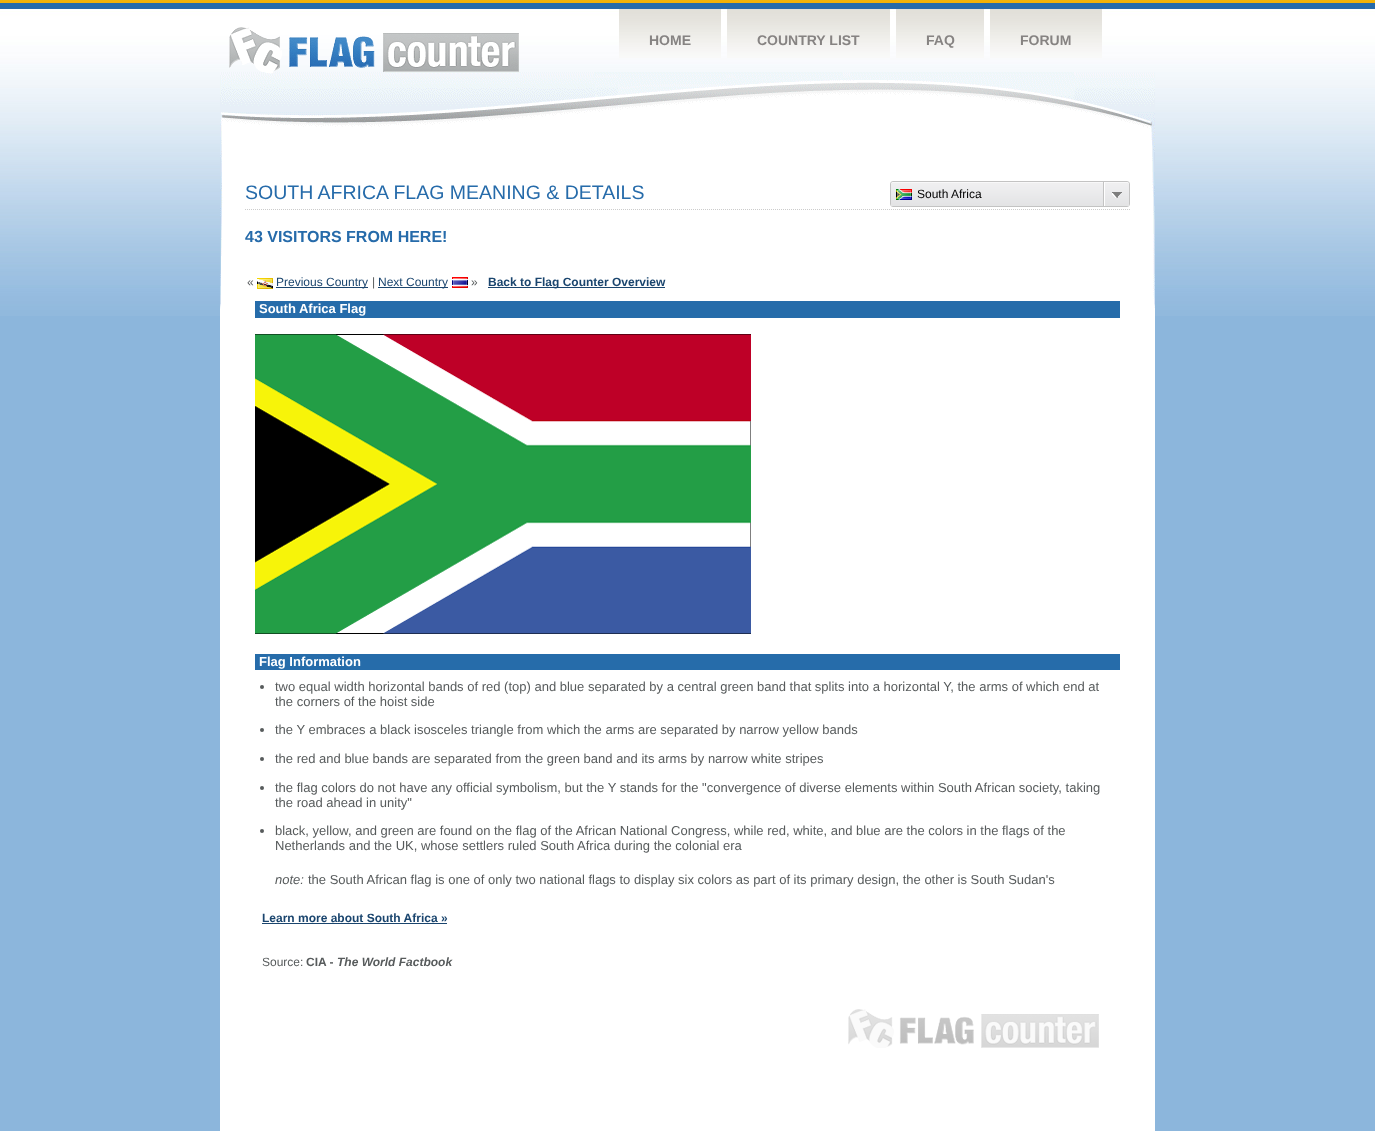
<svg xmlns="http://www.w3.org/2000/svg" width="1375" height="1131">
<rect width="100%" height="100%" fill="#8cb6dc"/>
<image x="0" y="0" width="1375" height="316" href="media/1.png"/>
<image x="229" y="27" width="290" height="45" href="media/2.png"/>
<image x="619" y="9" width="102" height="49" href="media/3.png"/>
<text x="649" y="45" style="font-family:Liberation Sans;font-size:14px;font-weight:bold;fill:#868382">HOME</text>
<image x="727" y="9" width="163" height="49" href="media/4.png"/>
<text x="757" y="45" style="font-family:Liberation Sans;font-size:14px;font-weight:bold;fill:#868382">COUNTRY LIST</text>
<image x="896" y="9" width="88" height="49" href="media/5.png"/>
<text x="926" y="45" style="font-family:Liberation Sans;font-size:14px;font-weight:bold;fill:#868382">FAQ</text>
<image x="990" y="9" width="112" height="49" href="media/6.png"/>
<text x="1020" y="45" style="font-family:Liberation Sans;font-size:14px;font-weight:bold;fill:#868382">FORUM</text>
<rect x="220" y="309" width="935" height="822" fill="#fff"/>
<image x="220" y="72" width="935" height="237" href="media/7.png"/>
<path d="M245 209.5h885" fill="none" stroke="#ccc" stroke-dasharray="1 1"/>
<text x="245" y="199" style="font-family:Liberation Sans;font-size:19.5px;fill:#266baa">SOUTH AFRICA FLAG MEANING &amp; DETAILS</text>
<rect x="890.5" y="181.5" width="239" height="25" rx="2.5" fill="none" stroke="#c3c3c3"/>
<image x="891" y="182" width="238" height="24" href="media/8.png"/>
<image x="896" y="189" width="16" height="11" href="media/9.png"/>
<text x="917" y="198" style="font-family:Liberation Sans;font-size:12px;fill:#000">South Africa</text>
<rect x="1104" y="182" width="1" height="24" fill="#fff"/>
<rect x="1103" y="182" width="1" height="24" fill="#c3c3c3"/>
<image x="1112" y="192" width="10" height="6" href="media/10.png"/>
<text x="245" y="242" style="font-family:Liberation Sans;font-size:16px;font-weight:bold;fill:#266baa">43 VISITORS FROM HERE!</text>
<text x="247" y="286" style="font-family:Liberation Sans;font-size:12px;fill:#575b5c">«</text>
<image x="257" y="278" width="16" height="11" href="media/11.png"/>
<rect x="276" y="287" width="92" height="1" fill="#1a456e"/>
<text x="276" y="286" style="font-family:Liberation Sans;font-size:12px;fill:#1a456e">Previous Country</text>
<text x="372" y="286" style="font-family:Liberation Sans;font-size:12px;fill:#575b5c">|</text>
<rect x="378" y="287" width="70" height="1" fill="#1a456e"/>
<text x="378" y="286" style="font-family:Liberation Sans;font-size:12px;fill:#1a456e">Next Country</text>
<image x="452" y="277" width="16" height="11" href="media/12.png"/>
<text x="471" y="286" style="font-family:Liberation Sans;font-size:12px;fill:#575b5c">»</text>
<rect x="488" y="287" width="177" height="1" fill="#1a456e"/>
<text x="488" y="286" style="font-family:Liberation Sans;font-size:12px;font-weight:bold;fill:#1a456e">Back to Flag Counter Overview</text>
<rect x="255" y="301" width="865" height="17" fill="#266caa"/>
<text x="259" y="313" style="font-family:Liberation Sans;font-size:13px;font-weight:bold;fill:#fff">South Africa Flag</text>
<image x="255" y="334" width="496" height="300" href="media/13.png"/>
<rect x="255" y="654" width="865" height="16" fill="#266caa"/>
<text x="259" y="666" style="font-family:Liberation Sans;font-size:13px;font-weight:bold;fill:#fff">Flag Information</text>
<circle cx="262" cy="687" r="2" fill="#575b5c"/>
<text x="275" y="691" style="font-family:Liberation Sans;font-size:13px;fill:#575b5c">two equal width horizontal bands of red (top) and blue separated by a central green band that splits into a horizontal Y, the arms of which end at</text>
<text x="275" y="706" style="font-family:Liberation Sans;font-size:13px;fill:#575b5c">the corners of the hoist side</text>
<circle cx="262" cy="730" r="2" fill="#575b5c"/>
<text x="275" y="734" style="font-family:Liberation Sans;font-size:13px;fill:#575b5c">the Y embraces a black isosceles triangle from which the arms are separated by narrow yellow bands</text>
<circle cx="262" cy="759" r="2" fill="#575b5c"/>
<text x="275" y="763" style="font-family:Liberation Sans;font-size:13px;fill:#575b5c">the red and blue bands are separated from the green band and its arms by narrow white stripes</text>
<circle cx="262" cy="788" r="2" fill="#575b5c"/>
<text x="275" y="792" style="font-family:Liberation Sans;font-size:13px;fill:#575b5c">the flag colors do not have any official symbolism, but the Y stands for the "convergence of diverse elements within South African society, taking</text>
<text x="275" y="807" style="font-family:Liberation Sans;font-size:13px;fill:#575b5c">the road ahead in unity"</text>
<circle cx="262" cy="831" r="2" fill="#575b5c"/>
<text x="275" y="835" style="font-family:Liberation Sans;font-size:13px;fill:#575b5c">black, yellow, and green are found on the flag of the African National Congress, while red, white, and blue are the colors in the flags of the</text>
<text x="275" y="850" style="font-family:Liberation Sans;font-size:13px;fill:#575b5c">Netherlands and the UK, whose settlers ruled South Africa during the colonial era</text>
<text x="275" y="884" style="font-family:Liberation Sans;font-size:13px;font-style:italic;fill:#575b5c">note:</text>
<text x="308" y="884" style="font-family:Liberation Sans;font-size:13px;fill:#575b5c">the South African flag is one of only two national flags to display six colors as part of its primary design, the other is South Sudan's</text>
<text x="262" y="922" style="font-family:Liberation Sans;font-size:12px;font-weight:bold;fill:#1a456e">Learn more about South Africa »</text>
<rect x="262" y="923" width="185" height="1" fill="#1a456e"/>
<text x="262" y="966" style="font-family:Liberation Sans;font-size:12px;fill:#575b5c">Source:</text>
<text x="306" y="966" style="font-family:Liberation Sans;font-size:12px;font-weight:bold;fill:#575b5c">CIA -</text>
<text x="337" y="966" style="font-family:Liberation Sans;font-size:12px;font-weight:bold;font-style:italic;fill:#575b5c">The World Factbook</text>
<image x="848" y="1009" width="251" height="39" href="media/14.png"/>
</svg>
